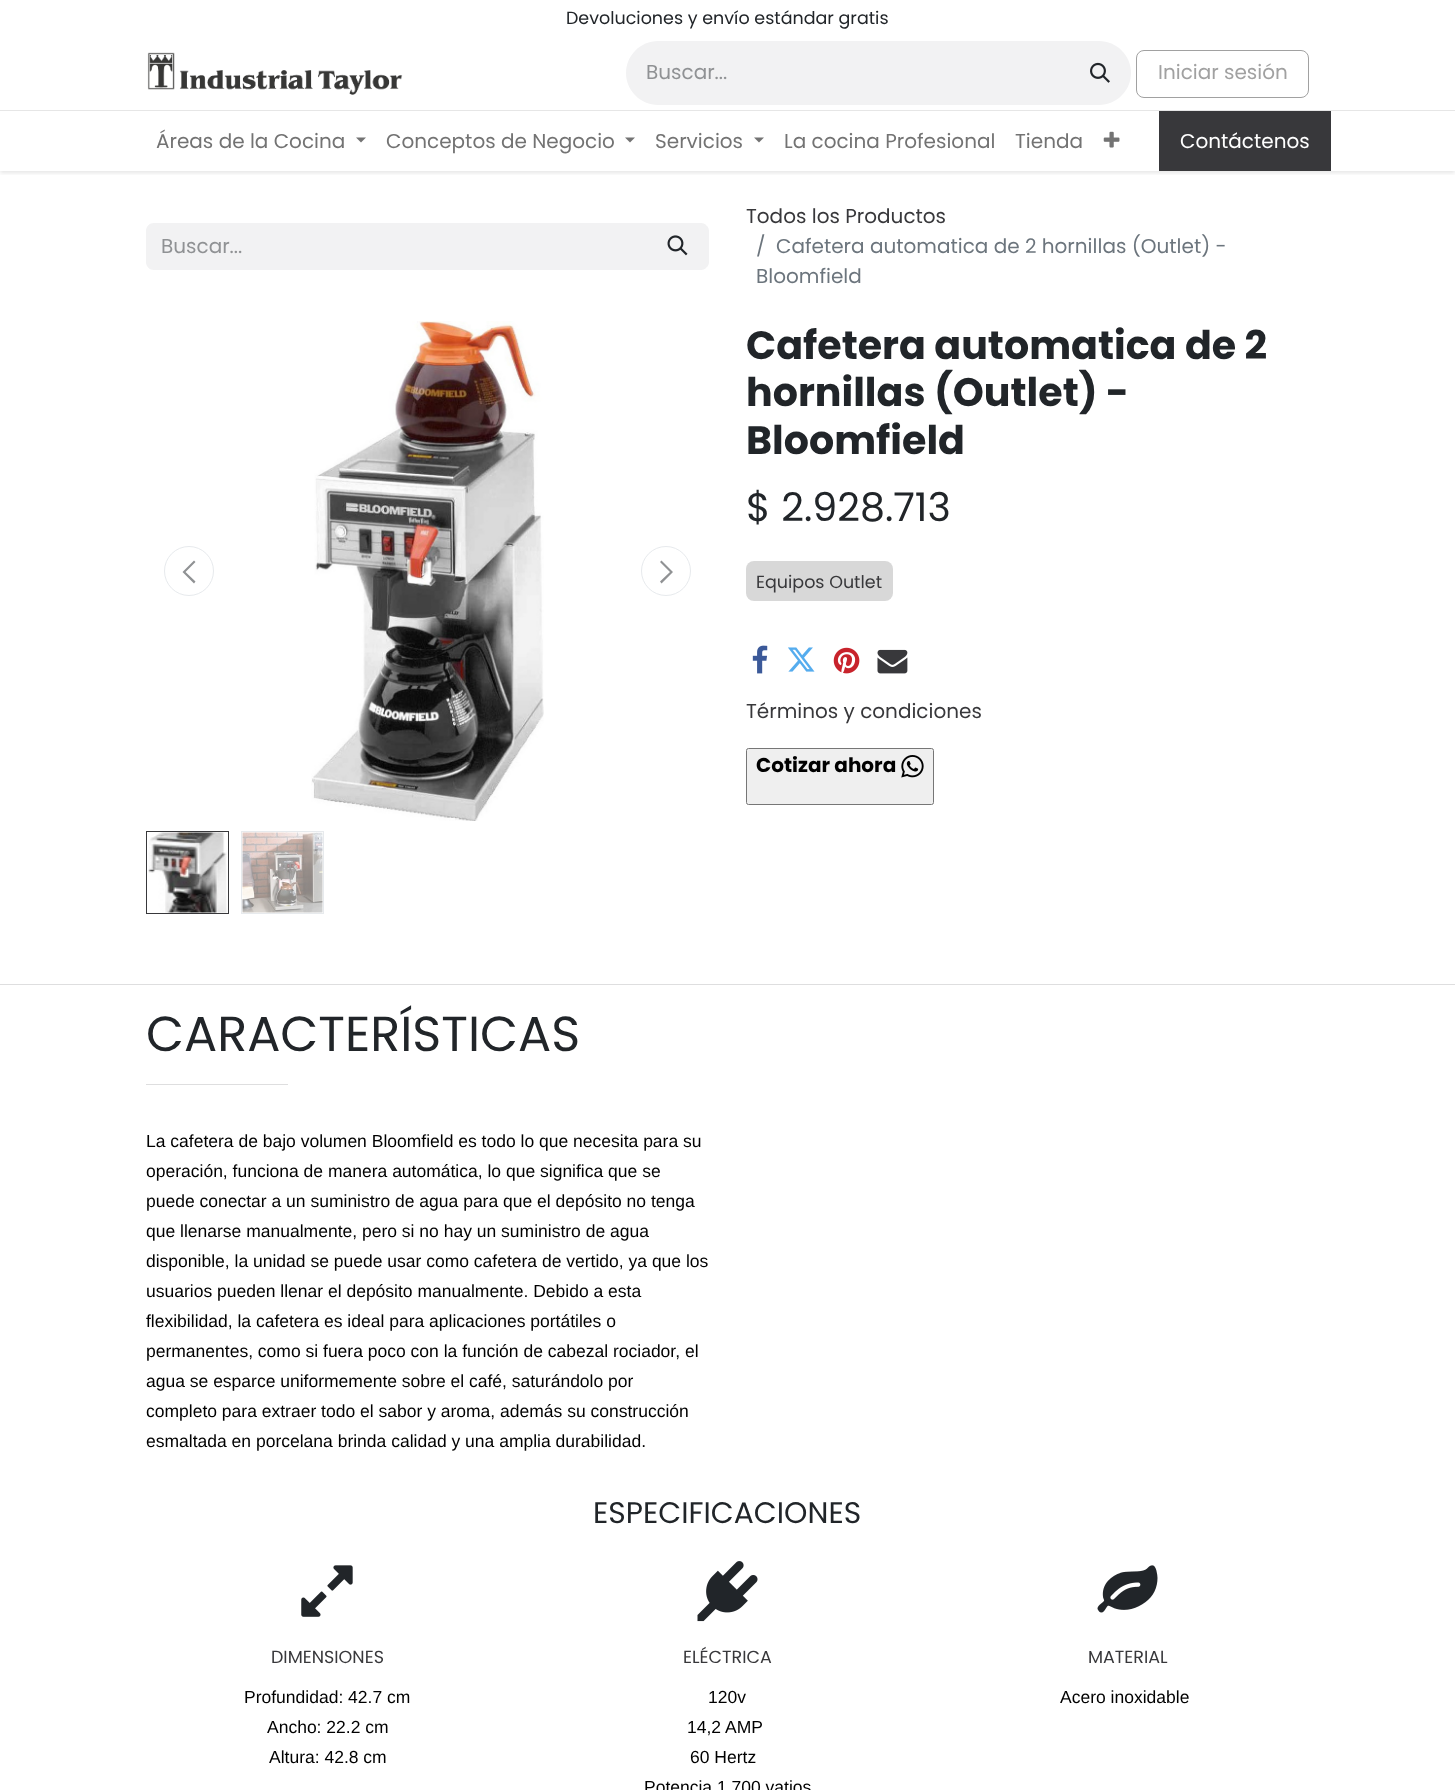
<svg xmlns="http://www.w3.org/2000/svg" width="1455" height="1790">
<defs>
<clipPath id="clip1"><rect x="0" y="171" width="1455" height="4"/></clipPath>
</defs>
<rect width="100%" height="100%" fill="#fff"/>
<g clip-path="url(#clip1)">
<rect y="1" width="1455" height="172" fill="#0000001a" filter="blur(2px)"/>
</g>
<text x="566" y="24" style="font-family:Poppins;font-size:17.5px;fill:#212529">Devoluciones y envío estándar gratis</text>
<image x="147" y="52" width="256" height="43" href="media/1.png"/>
<path d="M658 41h412v64h-412c-17.5 0-32-14.5-32-32c0-17.5 14.5-32 32-32z" fill="#f2f2f3"/>
<text x="646" y="79" style="font-family:Poppins;font-size:20px;fill:#909294">Buscar...</text>
<path d="M1069 41h30c17.5 0 32 14.5 32 32c0 17.5-14.5 32-32 32h-30z" fill="#f2f2f3"/>
<image x="1090" y="62" width="20" height="21" href="media/2.png"/>
<rect x="1136.5" y="50.5" width="172" height="47" rx="7.5" fill="none" stroke="#a1a1a1"/>
<text x="1158" y="79" style="font-family:Poppins;font-size:20px;fill:#a1a1a1">Iniciar sesión</text>
<rect y="110" width="1455" height="1" fill="#e6e6e6"/>
<text x="156" y="148" style="font-family:Poppins;font-size:20px;fill:#737373">Áreas de la Cocina</text>
<path d="M356 137.5h10l-5 5z" fill="#737373"/>
<text x="386" y="148" style="font-family:Poppins;font-size:20px;fill:#737373">Conceptos de Negocio</text>
<path d="M625 137.5h10l-5 5z" fill="#737373"/>
<text x="655" y="148" style="font-family:Poppins;font-size:20px;fill:#737373">Servicios</text>
<path d="M754 137.5h10l-5 5z" fill="#737373"/>
<text x="784" y="148" style="font-family:Poppins;font-size:20px;fill:#737373">La cocina Profesional</text>
<text x="1015" y="148" style="font-family:Poppins;font-size:20px;fill:#737373">Tienda</text>
<image x="1103" y="131" width="17" height="17" href="media/3.png"/>
<rect x="1159" y="111" width="172" height="60" fill="#38383b"/>
<text x="1180" y="148" style="font-family:Poppins;font-size:20px;fill:#fff">Contáctenos</text>
<path d="M154 223h494v47h-494c-4.5 0-8-3.5-8-8v-31c0-4.5 3.5-8 8-8z" fill="#f2f2f3"/>
<text x="161" y="253" style="font-family:Poppins;font-size:20px;fill:#909294">Buscar...</text>
<path d="M646.5 223.5h54.5c4 0 7.5 3.5 7.5 7.5v31c0 4-3.5 7.5-7.5 7.5h-54.5z" fill="#f2f2f3" stroke="#f2f2f3"/>
<image x="667" y="235" width="21" height="21" href="media/4.png"/>
<text x="746" y="223" style="font-family:Poppins;font-size:20px;fill:#38383b">Todos los Productos</text>
<text x="756" y="253" style="font-family:Poppins;font-size:20px;fill:#6c757d">/</text>
<text x="776" y="253" style="font-family:Poppins;font-size:20px;fill:#6c757d">Cafetera automatica de 2 hornillas (Outlet) -</text>
<text x="756" y="283" style="font-family:Poppins;font-size:20px;fill:#6c757d">Bloomfield</text>
<circle cx="189" cy="571" r="24.5" fill="none" stroke="#e7eaed"/>
<path d="M182.5 572l11.5-11.5l1.5 1.5l-10 10l10 9.5l-1.5 2z" fill="#909294"/>
<image x="311" y="321" width="233" height="500" href="media/5.png"/>
<circle cx="666" cy="571" r="24.5" fill="none" stroke="#e7eaed"/>
<path d="M673 572l-11.5 11.5l-1.5-2l10-9.5l-10-10l1.5-1.5z" fill="#909294"/>
<rect x="146.5" y="831.5" width="82" height="82" fill="none" stroke="#38383b"/>
<image x="148" y="832" width="80" height="81" href="media/6.png"/>
<rect x="241.5" y="831.5" width="82" height="82" fill="none" stroke="#e7eaed"/>
<image x="242" y="832" width="81" height="81" href="media/7.png"/>
<text x="746" y="359" style="font-family:Poppins;font-size:39.6px;font-weight:bold;fill:#212529">Cafetera automatica de 2</text>
<text x="746" y="406" style="font-family:Poppins;font-size:39.6px;font-weight:bold;fill:#212529">hornillas (Outlet) -</text>
<text x="746" y="454" style="font-family:Poppins;font-size:39.6px;font-weight:bold;fill:#212529">Bloomfield</text>
<text x="746" y="521" style="font-family:Poppins;font-size:39.6px;fill:#212529">$ 2.928.713</text>
<text x="756" y="588" style="font-family:Poppins;font-size:17.5px;fill:#38383b">Equipos Outlet</text>
<rect x="746" y="561" width="147" height="40" rx="8" fill="#3c3c3c33"/>
<image x="752" y="645" width="16" height="29" href="media/8.png"/>
<image x="788" y="647" width="27" height="25" href="media/9.png"/>
<image x="833" y="647" width="27" height="27" href="media/10.png"/>
<image x="877" y="649" width="31" height="25" href="media/11.png"/>
<text x="746" y="718" style="font-family:Poppins;font-size:20px;fill:#38383b">Términos y condiciones</text>
<rect x="746.5" y="748.5" width="187" height="56" rx="2" fill="#efefef" stroke="#767676"/>
<text x="756" y="772" style="font-family:Poppins;font-size:20px;font-weight:bold;fill:#000">Cotizar ahora</text>
<image x="901" y="755" width="23" height="23" href="media/12.png"/>
<rect y="984" width="1455" height="1" fill="#dededf"/>
<text x="146" y="1051" style="font-family:Poppins;font-size:49.25px;fill:#212529">CARACTERÍSTICAS</text>
<rect x="146" y="1084" width="142" height="1" fill="#dededf"/>
<text x="146" y="1147" style="font-family:Liberation Sans;font-size:17.5px;fill:#000">La cafetera de bajo volumen Bloomfield es todo lo que necesita para su</text>
<text x="146" y="1177" style="font-family:Liberation Sans;font-size:17.5px;fill:#000">operación, funciona de manera automática, lo que significa que se</text>
<text x="146" y="1207" style="font-family:Liberation Sans;font-size:17.5px;fill:#000">puede conectar a un suministro de agua para que el depósito no tenga</text>
<text x="146" y="1237" style="font-family:Liberation Sans;font-size:17.5px;fill:#000">que llenarse manualmente, pero si no hay un suministro de agua</text>
<text x="146" y="1267" style="font-family:Liberation Sans;font-size:17.5px;fill:#000">disponible, la unidad se puede usar como cafetera de vertido, ya que los</text>
<text x="146" y="1297" style="font-family:Liberation Sans;font-size:17.5px;fill:#000">usuarios pueden llenar el depósito manualmente. Debido a esta</text>
<text x="146" y="1327" style="font-family:Liberation Sans;font-size:17.5px;fill:#000">flexibilidad, la cafetera es ideal para aplicaciones portátiles o</text>
<text x="146" y="1357" style="font-family:Liberation Sans;font-size:17.5px;fill:#000">permanentes, como si fuera poco con la función de cabezal rociador, el</text>
<text x="146" y="1387" style="font-family:Liberation Sans;font-size:17.5px;fill:#000">agua se esparce uniformemente sobre el café, saturándolo por</text>
<text x="146" y="1417" style="font-family:Liberation Sans;font-size:17.5px;fill:#000">completo para extraer todo el sabor y aroma, además su construcción</text>
<text x="146" y="1447" style="font-family:Liberation Sans;font-size:17.5px;fill:#000">esmaltada en porcelana brinda calidad y una amplia durabilidad.</text>
<text x="593" y="1523" style="font-family:Poppins;font-size:29.75px;fill:#212529">ESPECIFICACIONES</text>
<image x="301" y="1565" width="52" height="52" href="media/13.png"/>
<text x="271" y="1663" style="font-family:Poppins;font-size:17.5px;fill:#38383b">DIMENSIONES</text>
<text x="244" y="1703" style="font-family:Liberation Sans;font-size:17.5px;fill:#000">Profundidad: 42.7 cm</text>
<text x="267" y="1733" style="font-family:Liberation Sans;font-size:17.5px;fill:#000">Ancho: 22.2 cm</text>
<text x="269" y="1763" style="font-family:Liberation Sans;font-size:17.5px;fill:#000">Altura: 42.8 cm</text>
<image x="697" y="1561" width="61" height="61" href="media/14.png"/>
<text x="683" y="1663" style="font-family:Poppins;font-size:17.5px;fill:#38383b">ELÉCTRICA</text>
<text x="708" y="1703" style="font-family:Liberation Sans;font-size:17.5px;fill:#000">120v</text>
<text x="687" y="1733" style="font-family:Liberation Sans;font-size:17.5px;fill:#000">14,2 AMP</text>
<text x="690" y="1763" style="font-family:Liberation Sans;font-size:17.5px;fill:#000">60 Hertz</text>
<text x="644" y="1793" style="font-family:Liberation Sans;font-size:17.5px;fill:#000">Potencia 1.700 vatios</text>
<image x="1097" y="1565" width="61" height="48" href="media/15.png"/>
<text x="1088" y="1663" style="font-family:Poppins;font-size:17.5px;fill:#38383b">MATERIAL</text>
<text x="1060" y="1703" style="font-family:Liberation Sans;font-size:17.5px;fill:#000">Acero inoxidable</text>
</svg>
